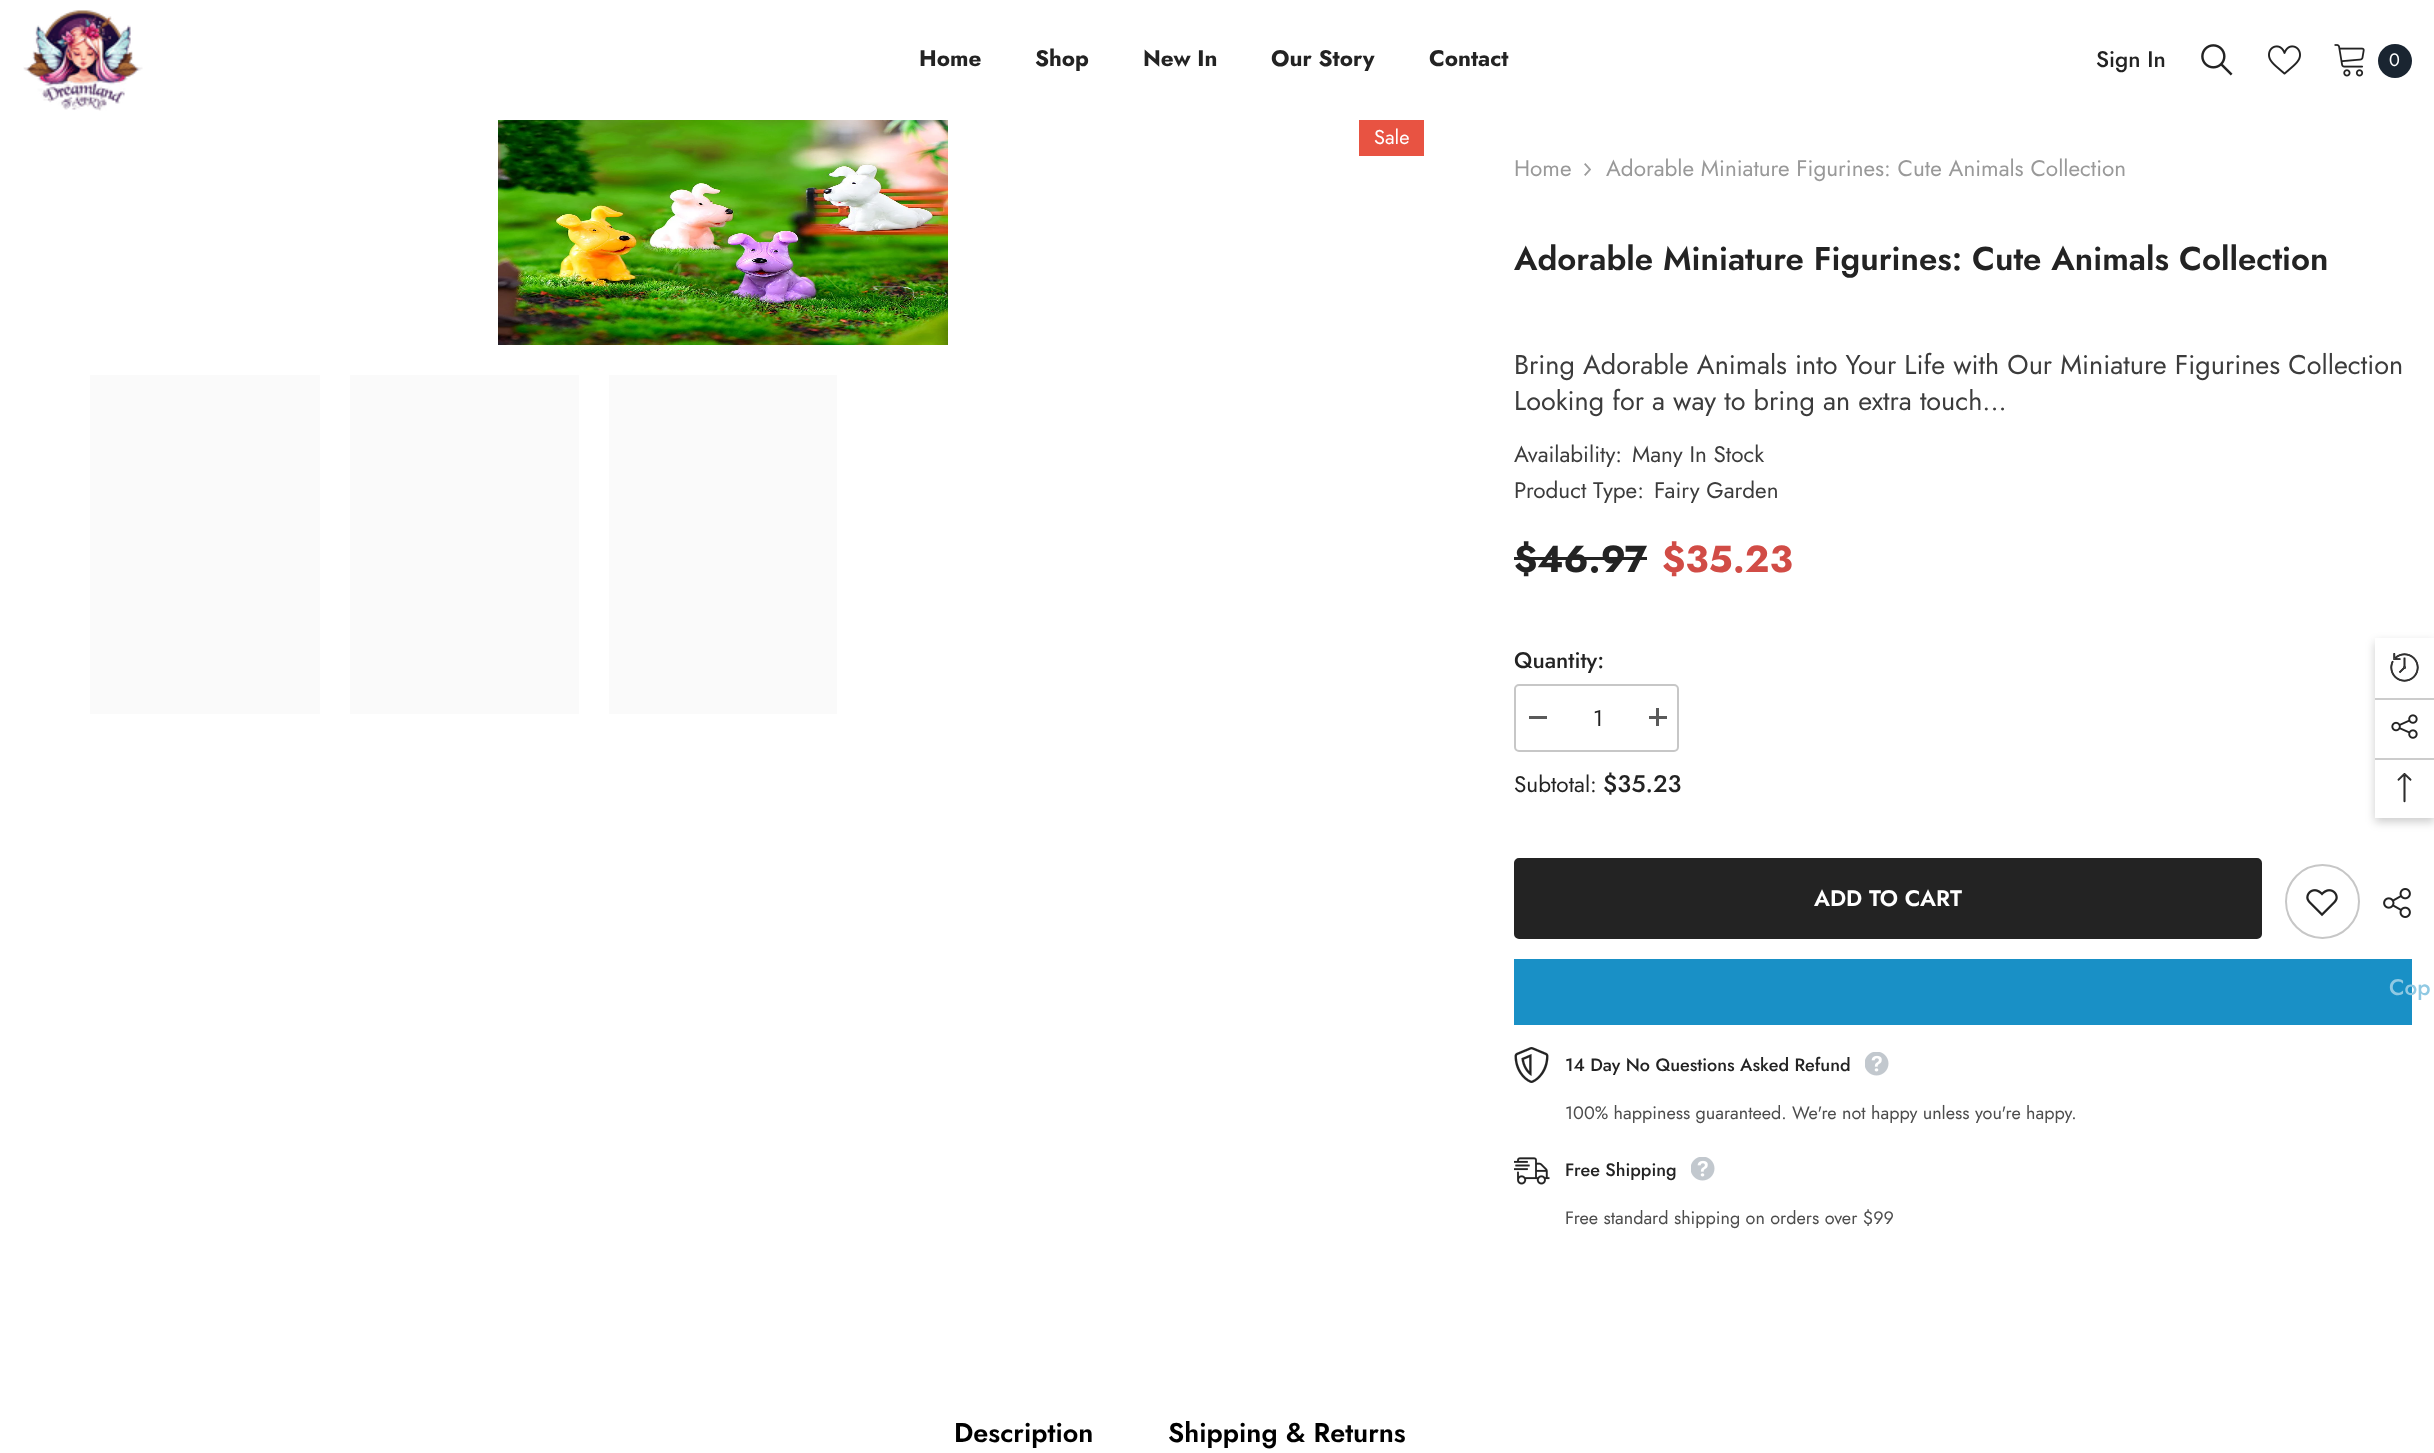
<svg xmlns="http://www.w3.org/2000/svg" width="2434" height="1453">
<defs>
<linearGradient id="g1" gradientUnits="userSpaceOnUse" x1="-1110" y1="545" x2="1890" y2="544"><stop offset="0.04" stop-color="#fafafa"/><stop offset="0.25" stop-color="#f1f2f3"/><stop offset="0.36" stop-color="#fafafa"/></linearGradient>
<linearGradient id="g2" gradientUnits="userSpaceOnUse" x1="-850" y1="545" x2="2150" y2="544"><stop offset="0.04" stop-color="#fafafa"/><stop offset="0.25" stop-color="#f1f2f3"/><stop offset="0.36" stop-color="#fafafa"/></linearGradient>
<linearGradient id="g3" gradientUnits="userSpaceOnUse" x1="-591" y1="545" x2="2409" y2="544"><stop offset="0.04" stop-color="#fafafa"/><stop offset="0.25" stop-color="#f1f2f3"/><stop offset="0.36" stop-color="#fafafa"/></linearGradient>
</defs>
<rect width="100%" height="100%" fill="#fff"/>
<image x="23" y="10" width="120" height="101" href="media/1.png"/>
<text x="919" y="66" style="font-family:Jost;font-size:22.5px;font-weight:bold;fill:#232323">Home</text>
<text x="1035" y="66" style="font-family:Jost;font-size:22.5px;font-weight:bold;fill:#232323">Shop</text>
<text x="1143" y="66" style="font-family:Jost;font-size:22.5px;font-weight:bold;fill:#232323">New In</text>
<text x="1271" y="66" style="font-family:Jost;font-size:22.5px;font-weight:bold;fill:#232323">Our Story</text>
<text x="1429" y="66" style="font-family:Jost;font-size:22.5px;font-weight:bold;fill:#232323">Contact</text>
<text x="2096" y="67" style="font-family:Jost;font-size:22.5px;font-weight:500;fill:#232323">Sign In</text>
<image x="2201" y="44" width="32" height="32" href="media/2.png"/>
<image x="2268" y="45" width="33" height="30" href="media/3.png"/>
<image x="2334" y="44" width="31" height="33" href="media/4.png"/>
<circle cx="2395" cy="61" r="17" fill="#1a2531"/>
<text x="2389" y="66" style="font-family:Jost;font-size:18px;fill:#fff">0</text>
<image x="498" y="120" width="450" height="225" href="media/5.png"/>
<rect x="1359" y="120" width="65" height="36" fill="#e85342"/>
<text x="1374" y="144" style="font-family:Jost;font-size:20px;fill:#fff">Sale</text>
<rect x="90" y="375" width="230" height="339" fill="url(#g1)"/>
<rect x="350" y="375" width="229" height="339" fill="url(#g2)"/>
<rect x="609" y="375" width="228" height="339" fill="url(#g3)"/>
<text x="1514" y="176" style="font-family:Jost;font-size:22.5px;fill:#999">Home</text>
<image x="1584" y="163" width="7" height="13" href="media/6.png"/>
<text x="1606" y="176" style="font-family:Jost;font-size:22.5px;fill:#999">Adorable Miniature Figurines: Cute Animals Collection</text>
<text x="1514" y="270" style="font-family:Jost;font-size:33px;font-weight:600;fill:#232323">Adorable Miniature Figurines: Cute Animals Collection</text>
<text x="1514" y="374" style="font-family:Jost;font-size:27px;fill:#3c3c3c">Bring Adorable Animals into Your Life with Our Miniature Figurines Collection</text>
<text x="1514" y="410" style="font-family:Jost;font-size:27px;fill:#3c3c3c">Looking for a way to bring an extra touch...</text>
<text x="1514" y="462" style="font-family:Jost;font-size:22.5px;fill:#3c3c3c">Availability:</text>
<text x="1632" y="462" style="font-family:Jost;font-size:22.5px;fill:#3c3c3c">Many In Stock</text>
<text x="1514" y="498" style="font-family:Jost;font-size:22.5px;fill:#3c3c3c">Product Type:</text>
<text x="1654" y="498" style="font-family:Jost;font-size:22.5px;fill:#3c3c3c">Fairy Garden</text>
<text x="1514" y="572" style="font-family:Jost;font-size:37.5px;font-weight:bold;fill:#232323">$46.97</text>
<rect x="1514" y="557" width="133" height="3" fill="#232323"/>
<text x="1662" y="572" style="font-family:Jost;font-size:37.5px;font-weight:bold;fill:#d14c46">$35.23</text>
<text x="1514" y="668" style="font-family:Jost;font-size:22.5px;font-weight:500;fill:#232323">Quantity:</text>
<rect x="1515" y="685" width="163" height="66" rx="4" fill="none" stroke="#c7c7c7" stroke-width="2"/>
<rect x="1529" y="716" width="18" height="3" fill="#5a5a5a"/>
<text x="1593" y="726" style="font-family:Jost;font-size:22.5px;fill:#232323">1</text>
<rect x="1649" y="716" width="18" height="3" fill="#5a5a5a"/>
<rect x="1656" y="708" width="3" height="18" fill="#5a5a5a"/>
<text x="1514" y="792" style="font-family:Jost;font-size:22.5px;fill:#232323">Subtotal:</text>
<text x="1603" y="792" style="font-family:Jost;font-size:24px;font-weight:500;fill:#232323">$35.23</text>
<rect x="1515" y="859" width="746" height="79" rx="4" fill="#232323" stroke="#232323" stroke-width="2"/>
<text x="1814" y="906" style="font-family:Jost;font-size:22.5px;font-weight:600;fill:#fff">ADD TO CART</text>
<circle cx="2322.5" cy="901.5" r="36.5" fill="none" stroke="#c7c7c7" stroke-width="2"/>
<image x="2306" y="889" width="32" height="28" href="media/7.png"/>
<image x="2383" y="888" width="28" height="30" href="media/8.png"/>
<rect x="1514" y="959" width="898" height="66" fill="#1990c6"/>
<text x="2389" y="995" style="font-family:Jost;font-size:22.5px;font-weight:500;fill:#90c9e3">Cop</text>
<image x="1514" y="1047" width="35" height="36" href="media/9.png"/>
<text x="1565" y="1071" style="font-family:Jost;font-size:18px;font-weight:500;fill:#232323">14 Day No Questions Asked Refund</text>
<image x="1865" y="1052" width="24" height="24" href="media/10.png"/>
<text x="1565" y="1119" style="font-family:Jost;font-size:18px;fill:#4d4d4d">100% happiness guaranteed. We're not happy unless you're happy.</text>
<image x="1514" y="1157" width="36" height="28" href="media/11.png"/>
<text x="1565" y="1176" style="font-family:Jost;font-size:18px;font-weight:500;fill:#232323">Free Shipping</text>
<image x="1691" y="1157" width="24" height="24" href="media/10.png"/>
<text x="1565" y="1224" style="font-family:Jost;font-size:18px;fill:#4d4d4d">Free standard shipping on orders over $99</text>
<text x="954" y="1442" style="font-family:Jost;font-size:27px;font-weight:600;fill:#000">Description</text>
<text x="1168" y="1442" style="font-family:Jost;font-size:27px;font-weight:600;fill:#000">Shipping &amp; Returns</text>
<rect x="2375" y="642" width="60" height="180" fill="#00000033" filter="blur(5px)"/>
<rect x="2375" y="638" width="59" height="180" fill="#fff"/>
<image x="2390" y="653" width="29" height="29" href="media/12.png"/>
<rect x="2375" y="698" width="59" height="2" fill="#ccc"/>
<image x="2391" y="714" width="27" height="25" href="media/13.png"/>
<rect x="2375" y="758" width="59" height="2" fill="#ccc"/>
<image x="2397" y="773" width="15" height="30" href="media/14.png"/>
</svg>
